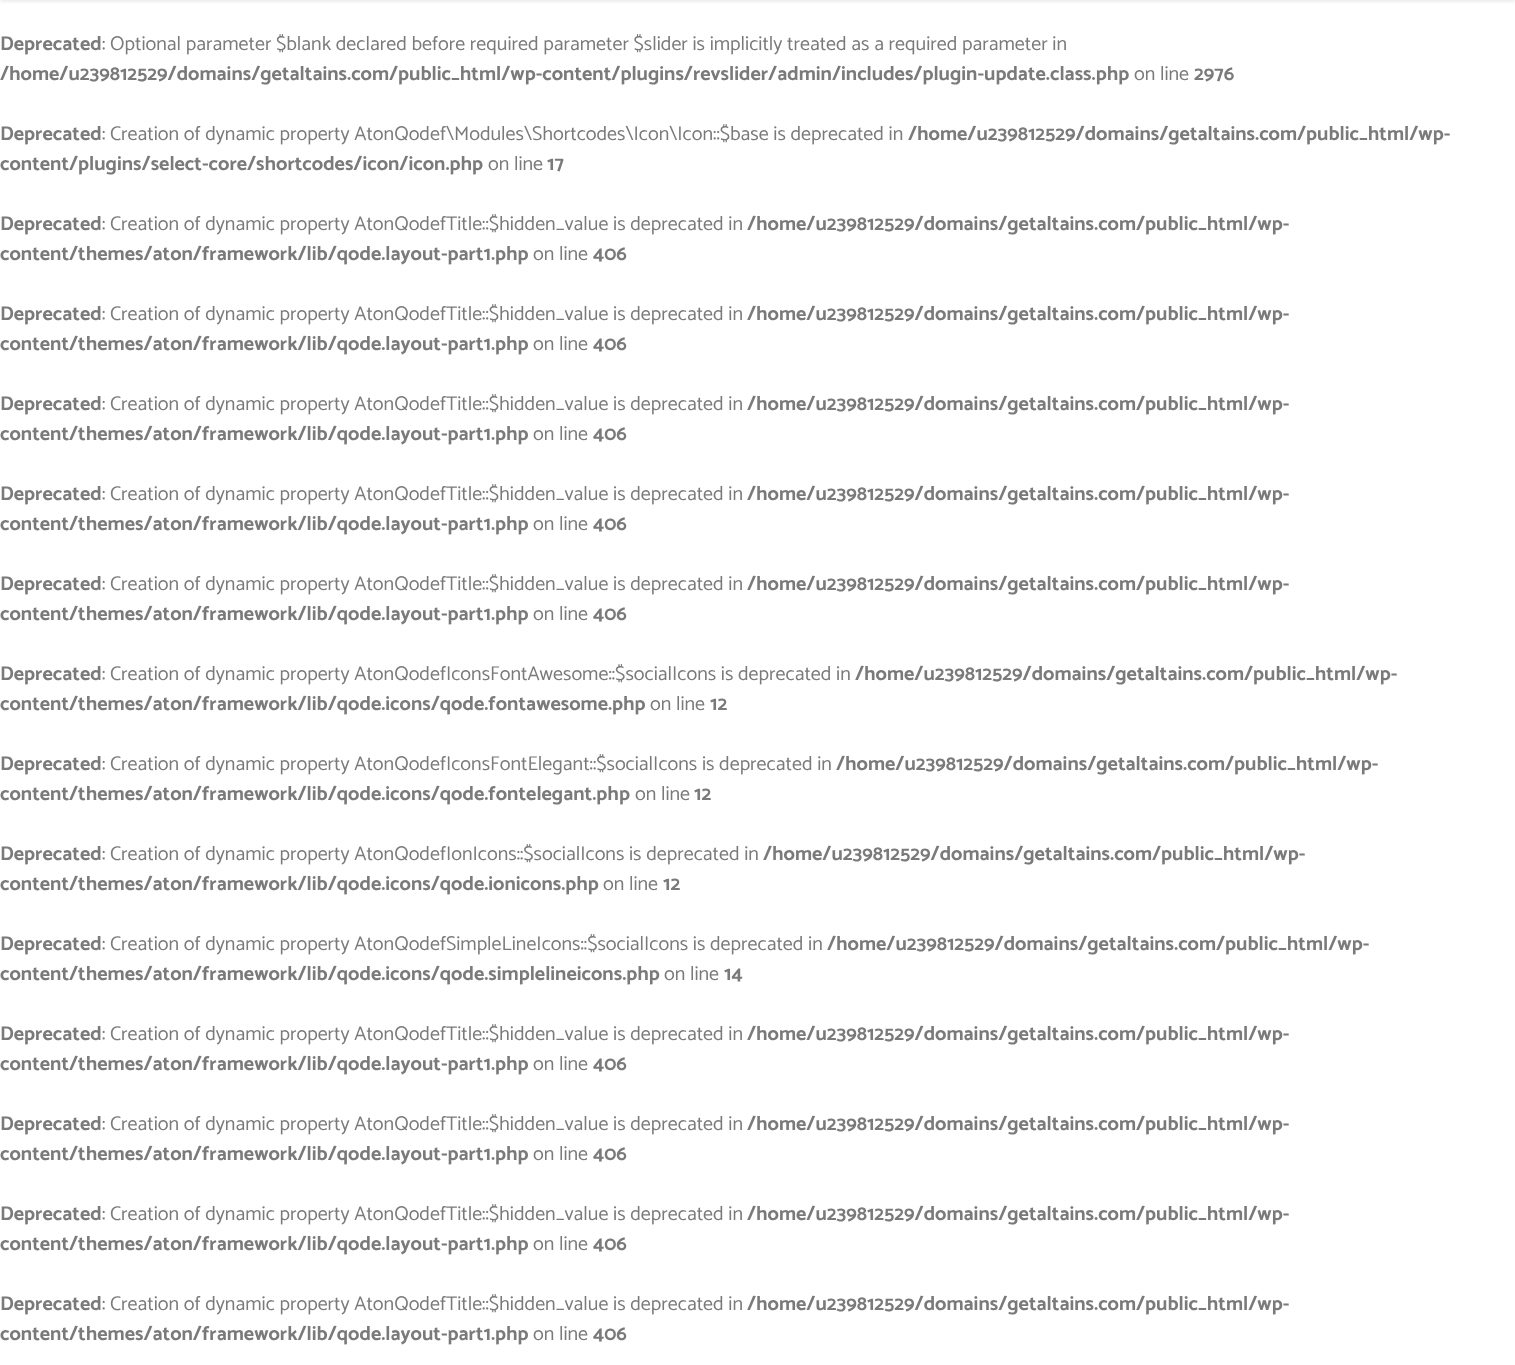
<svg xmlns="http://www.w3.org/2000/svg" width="1515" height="1365">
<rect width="100%" height="100%" fill="#fff"/>
<rect y="-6" width="1515" height="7" fill="#0000001c" filter="blur(2px)"/>
<text x="0" y="50" style="font-family:Catamaran;font-size:20px;font-weight:bold;fill:#7a7a7a">Deprecated</text>
<text x="102" y="50" style="font-family:Catamaran;font-size:20px;fill:#7a7a7a">: Optional parameter $blank declared before required parameter $slider is implicitly treated as a required parameter in</text>
<text x="0" y="80" style="font-family:Catamaran;font-size:20px;font-weight:bold;fill:#7a7a7a">/home/u239812529/domains/getaltains.com/public_html/wp-content/plugins/revslider/admin/includes/plugin-update.class.php</text>
<text x="1134" y="80" style="font-family:Catamaran;font-size:20px;fill:#7a7a7a">on line</text>
<text x="1194" y="80" style="font-family:Catamaran;font-size:20px;font-weight:bold;fill:#7a7a7a">2976</text>
<text x="0" y="140" style="font-family:Catamaran;font-size:20px;font-weight:bold;fill:#7a7a7a">Deprecated</text>
<text x="102" y="140" style="font-family:Catamaran;font-size:20px;fill:#7a7a7a">: Creation of dynamic property AtonQodef\Modules\Shortcodes\Icon\Icon::$base is deprecated in</text>
<text x="908" y="140" style="font-family:Catamaran;font-size:20px;font-weight:bold;fill:#7a7a7a">/home/u239812529/domains/getaltains.com/public_html/wp-</text>
<text x="0" y="170" style="font-family:Catamaran;font-size:20px;font-weight:bold;fill:#7a7a7a">content/plugins/select-core/shortcodes/icon/icon.php</text>
<text x="488" y="170" style="font-family:Catamaran;font-size:20px;fill:#7a7a7a">on line</text>
<text x="547" y="170" style="font-family:Catamaran;font-size:20px;font-weight:bold;fill:#7a7a7a">17</text>
<text x="0" y="230" style="font-family:Catamaran;font-size:20px;font-weight:bold;fill:#7a7a7a">Deprecated</text>
<text x="102" y="230" style="font-family:Catamaran;font-size:20px;fill:#7a7a7a">: Creation of dynamic property AtonQodefTitle::$hidden_value is deprecated in</text>
<text x="747" y="230" style="font-family:Catamaran;font-size:20px;font-weight:bold;fill:#7a7a7a">/home/u239812529/domains/getaltains.com/public_html/wp-</text>
<text x="0" y="260" style="font-family:Catamaran;font-size:20px;font-weight:bold;fill:#7a7a7a">content/themes/aton/framework/lib/qode.layout-part1.php</text>
<text x="533" y="260" style="font-family:Catamaran;font-size:20px;fill:#7a7a7a">on line</text>
<text x="593" y="260" style="font-family:Catamaran;font-size:20px;font-weight:bold;fill:#7a7a7a">406</text>
<text x="0" y="320" style="font-family:Catamaran;font-size:20px;font-weight:bold;fill:#7a7a7a">Deprecated</text>
<text x="102" y="320" style="font-family:Catamaran;font-size:20px;fill:#7a7a7a">: Creation of dynamic property AtonQodefTitle::$hidden_value is deprecated in</text>
<text x="747" y="320" style="font-family:Catamaran;font-size:20px;font-weight:bold;fill:#7a7a7a">/home/u239812529/domains/getaltains.com/public_html/wp-</text>
<text x="0" y="350" style="font-family:Catamaran;font-size:20px;font-weight:bold;fill:#7a7a7a">content/themes/aton/framework/lib/qode.layout-part1.php</text>
<text x="533" y="350" style="font-family:Catamaran;font-size:20px;fill:#7a7a7a">on line</text>
<text x="593" y="350" style="font-family:Catamaran;font-size:20px;font-weight:bold;fill:#7a7a7a">406</text>
<text x="0" y="410" style="font-family:Catamaran;font-size:20px;font-weight:bold;fill:#7a7a7a">Deprecated</text>
<text x="102" y="410" style="font-family:Catamaran;font-size:20px;fill:#7a7a7a">: Creation of dynamic property AtonQodefTitle::$hidden_value is deprecated in</text>
<text x="747" y="410" style="font-family:Catamaran;font-size:20px;font-weight:bold;fill:#7a7a7a">/home/u239812529/domains/getaltains.com/public_html/wp-</text>
<text x="0" y="440" style="font-family:Catamaran;font-size:20px;font-weight:bold;fill:#7a7a7a">content/themes/aton/framework/lib/qode.layout-part1.php</text>
<text x="533" y="440" style="font-family:Catamaran;font-size:20px;fill:#7a7a7a">on line</text>
<text x="593" y="440" style="font-family:Catamaran;font-size:20px;font-weight:bold;fill:#7a7a7a">406</text>
<text x="0" y="500" style="font-family:Catamaran;font-size:20px;font-weight:bold;fill:#7a7a7a">Deprecated</text>
<text x="102" y="500" style="font-family:Catamaran;font-size:20px;fill:#7a7a7a">: Creation of dynamic property AtonQodefTitle::$hidden_value is deprecated in</text>
<text x="747" y="500" style="font-family:Catamaran;font-size:20px;font-weight:bold;fill:#7a7a7a">/home/u239812529/domains/getaltains.com/public_html/wp-</text>
<text x="0" y="530" style="font-family:Catamaran;font-size:20px;font-weight:bold;fill:#7a7a7a">content/themes/aton/framework/lib/qode.layout-part1.php</text>
<text x="533" y="530" style="font-family:Catamaran;font-size:20px;fill:#7a7a7a">on line</text>
<text x="593" y="530" style="font-family:Catamaran;font-size:20px;font-weight:bold;fill:#7a7a7a">406</text>
<text x="0" y="590" style="font-family:Catamaran;font-size:20px;font-weight:bold;fill:#7a7a7a">Deprecated</text>
<text x="102" y="590" style="font-family:Catamaran;font-size:20px;fill:#7a7a7a">: Creation of dynamic property AtonQodefTitle::$hidden_value is deprecated in</text>
<text x="747" y="590" style="font-family:Catamaran;font-size:20px;font-weight:bold;fill:#7a7a7a">/home/u239812529/domains/getaltains.com/public_html/wp-</text>
<text x="0" y="620" style="font-family:Catamaran;font-size:20px;font-weight:bold;fill:#7a7a7a">content/themes/aton/framework/lib/qode.layout-part1.php</text>
<text x="533" y="620" style="font-family:Catamaran;font-size:20px;fill:#7a7a7a">on line</text>
<text x="593" y="620" style="font-family:Catamaran;font-size:20px;font-weight:bold;fill:#7a7a7a">406</text>
<text x="0" y="680" style="font-family:Catamaran;font-size:20px;font-weight:bold;fill:#7a7a7a">Deprecated</text>
<text x="102" y="680" style="font-family:Catamaran;font-size:20px;fill:#7a7a7a">: Creation of dynamic property AtonQodefIconsFontAwesome::$socialIcons is deprecated in</text>
<text x="855" y="680" style="font-family:Catamaran;font-size:20px;font-weight:bold;fill:#7a7a7a">/home/u239812529/domains/getaltains.com/public_html/wp-</text>
<text x="0" y="710" style="font-family:Catamaran;font-size:20px;font-weight:bold;fill:#7a7a7a">content/themes/aton/framework/lib/qode.icons/qode.fontawesome.php</text>
<text x="650" y="710" style="font-family:Catamaran;font-size:20px;fill:#7a7a7a">on line</text>
<text x="710" y="710" style="font-family:Catamaran;font-size:20px;font-weight:bold;fill:#7a7a7a">12</text>
<text x="0" y="770" style="font-family:Catamaran;font-size:20px;font-weight:bold;fill:#7a7a7a">Deprecated</text>
<text x="102" y="770" style="font-family:Catamaran;font-size:20px;fill:#7a7a7a">: Creation of dynamic property AtonQodefIconsFontElegant::$socialIcons is deprecated in</text>
<text x="836" y="770" style="font-family:Catamaran;font-size:20px;font-weight:bold;fill:#7a7a7a">/home/u239812529/domains/getaltains.com/public_html/wp-</text>
<text x="0" y="800" style="font-family:Catamaran;font-size:20px;font-weight:bold;fill:#7a7a7a">content/themes/aton/framework/lib/qode.icons/qode.fontelegant.php</text>
<text x="635" y="800" style="font-family:Catamaran;font-size:20px;fill:#7a7a7a">on line</text>
<text x="694" y="800" style="font-family:Catamaran;font-size:20px;font-weight:bold;fill:#7a7a7a">12</text>
<text x="0" y="860" style="font-family:Catamaran;font-size:20px;font-weight:bold;fill:#7a7a7a">Deprecated</text>
<text x="102" y="860" style="font-family:Catamaran;font-size:20px;fill:#7a7a7a">: Creation of dynamic property AtonQodefIonIcons::$socialIcons is deprecated in</text>
<text x="763" y="860" style="font-family:Catamaran;font-size:20px;font-weight:bold;fill:#7a7a7a">/home/u239812529/domains/getaltains.com/public_html/wp-</text>
<text x="0" y="890" style="font-family:Catamaran;font-size:20px;font-weight:bold;fill:#7a7a7a">content/themes/aton/framework/lib/qode.icons/qode.ionicons.php</text>
<text x="603" y="890" style="font-family:Catamaran;font-size:20px;fill:#7a7a7a">on line</text>
<text x="663" y="890" style="font-family:Catamaran;font-size:20px;font-weight:bold;fill:#7a7a7a">12</text>
<text x="0" y="950" style="font-family:Catamaran;font-size:20px;font-weight:bold;fill:#7a7a7a">Deprecated</text>
<text x="102" y="950" style="font-family:Catamaran;font-size:20px;fill:#7a7a7a">: Creation of dynamic property AtonQodefSimpleLineIcons::$socialIcons is deprecated in</text>
<text x="827" y="950" style="font-family:Catamaran;font-size:20px;font-weight:bold;fill:#7a7a7a">/home/u239812529/domains/getaltains.com/public_html/wp-</text>
<text x="0" y="980" style="font-family:Catamaran;font-size:20px;font-weight:bold;fill:#7a7a7a">content/themes/aton/framework/lib/qode.icons/qode.simplelineicons.php</text>
<text x="664" y="980" style="font-family:Catamaran;font-size:20px;fill:#7a7a7a">on line</text>
<text x="724" y="980" style="font-family:Catamaran;font-size:20px;font-weight:bold;fill:#7a7a7a">14</text>
<text x="0" y="1040" style="font-family:Catamaran;font-size:20px;font-weight:bold;fill:#7a7a7a">Deprecated</text>
<text x="102" y="1040" style="font-family:Catamaran;font-size:20px;fill:#7a7a7a">: Creation of dynamic property AtonQodefTitle::$hidden_value is deprecated in</text>
<text x="747" y="1040" style="font-family:Catamaran;font-size:20px;font-weight:bold;fill:#7a7a7a">/home/u239812529/domains/getaltains.com/public_html/wp-</text>
<text x="0" y="1070" style="font-family:Catamaran;font-size:20px;font-weight:bold;fill:#7a7a7a">content/themes/aton/framework/lib/qode.layout-part1.php</text>
<text x="533" y="1070" style="font-family:Catamaran;font-size:20px;fill:#7a7a7a">on line</text>
<text x="593" y="1070" style="font-family:Catamaran;font-size:20px;font-weight:bold;fill:#7a7a7a">406</text>
<text x="0" y="1130" style="font-family:Catamaran;font-size:20px;font-weight:bold;fill:#7a7a7a">Deprecated</text>
<text x="102" y="1130" style="font-family:Catamaran;font-size:20px;fill:#7a7a7a">: Creation of dynamic property AtonQodefTitle::$hidden_value is deprecated in</text>
<text x="747" y="1130" style="font-family:Catamaran;font-size:20px;font-weight:bold;fill:#7a7a7a">/home/u239812529/domains/getaltains.com/public_html/wp-</text>
<text x="0" y="1160" style="font-family:Catamaran;font-size:20px;font-weight:bold;fill:#7a7a7a">content/themes/aton/framework/lib/qode.layout-part1.php</text>
<text x="533" y="1160" style="font-family:Catamaran;font-size:20px;fill:#7a7a7a">on line</text>
<text x="593" y="1160" style="font-family:Catamaran;font-size:20px;font-weight:bold;fill:#7a7a7a">406</text>
<text x="0" y="1220" style="font-family:Catamaran;font-size:20px;font-weight:bold;fill:#7a7a7a">Deprecated</text>
<text x="102" y="1220" style="font-family:Catamaran;font-size:20px;fill:#7a7a7a">: Creation of dynamic property AtonQodefTitle::$hidden_value is deprecated in</text>
<text x="747" y="1220" style="font-family:Catamaran;font-size:20px;font-weight:bold;fill:#7a7a7a">/home/u239812529/domains/getaltains.com/public_html/wp-</text>
<text x="0" y="1250" style="font-family:Catamaran;font-size:20px;font-weight:bold;fill:#7a7a7a">content/themes/aton/framework/lib/qode.layout-part1.php</text>
<text x="533" y="1250" style="font-family:Catamaran;font-size:20px;fill:#7a7a7a">on line</text>
<text x="593" y="1250" style="font-family:Catamaran;font-size:20px;font-weight:bold;fill:#7a7a7a">406</text>
<text x="0" y="1310" style="font-family:Catamaran;font-size:20px;font-weight:bold;fill:#7a7a7a">Deprecated</text>
<text x="102" y="1310" style="font-family:Catamaran;font-size:20px;fill:#7a7a7a">: Creation of dynamic property AtonQodefTitle::$hidden_value is deprecated in</text>
<text x="747" y="1310" style="font-family:Catamaran;font-size:20px;font-weight:bold;fill:#7a7a7a">/home/u239812529/domains/getaltains.com/public_html/wp-</text>
<text x="0" y="1340" style="font-family:Catamaran;font-size:20px;font-weight:bold;fill:#7a7a7a">content/themes/aton/framework/lib/qode.layout-part1.php</text>
<text x="533" y="1340" style="font-family:Catamaran;font-size:20px;fill:#7a7a7a">on line</text>
<text x="593" y="1340" style="font-family:Catamaran;font-size:20px;font-weight:bold;fill:#7a7a7a">406</text>
</svg>
